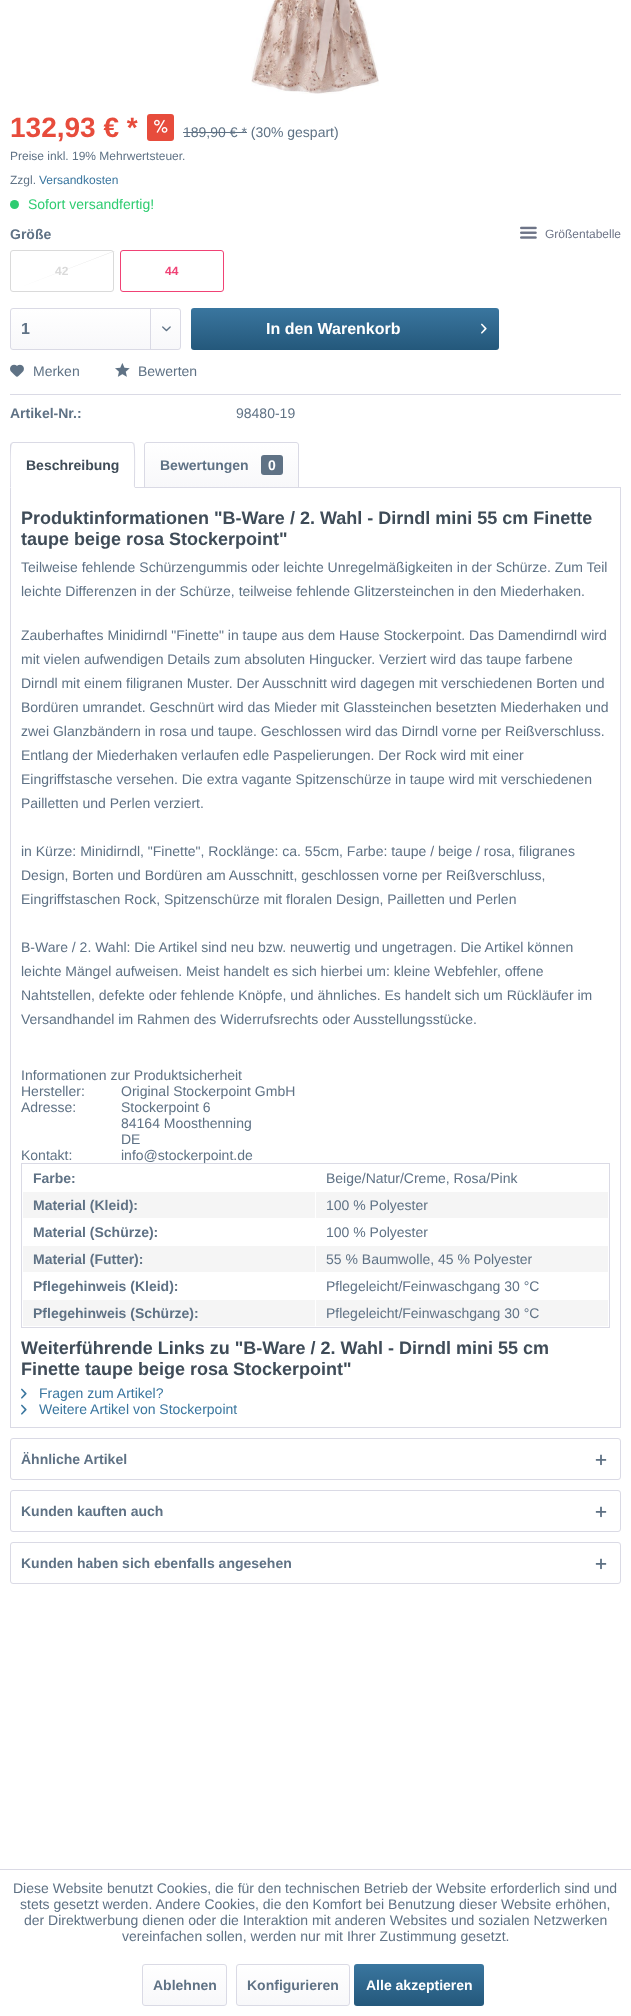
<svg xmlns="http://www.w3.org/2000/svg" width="631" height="2016">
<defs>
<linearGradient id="g1" gradientUnits="userSpaceOnUse" x1="96" y1="309" x2="96" y2="349"><stop offset="0" stop-color="#fff"/><stop offset="1" stop-color="#f8f8fa"/></linearGradient>
<linearGradient id="g2" gradientUnits="userSpaceOnUse" x1="345" y1="308" x2="345" y2="350"><stop offset="0" stop-color="#3a769f"/><stop offset="1" stop-color="#24587b"/></linearGradient>
<linearGradient id="g3" gradientUnits="userSpaceOnUse" x1="222" y1="443" x2="222" y2="487"><stop offset="0" stop-color="#fff"/><stop offset="1" stop-color="#f8f8fa"/></linearGradient>
<linearGradient id="g4" gradientUnits="userSpaceOnUse" x1="185" y1="1965" x2="185" y2="2005"><stop offset="0" stop-color="#fff"/><stop offset="1" stop-color="#f8f8fa"/></linearGradient>
<linearGradient id="g5" gradientUnits="userSpaceOnUse" x1="293" y1="1965" x2="293" y2="2005"><stop offset="0" stop-color="#fff"/><stop offset="1" stop-color="#f8f8fa"/></linearGradient>
<linearGradient id="g6" gradientUnits="userSpaceOnUse" x1="419" y1="1964" x2="419" y2="2006"><stop offset="0" stop-color="#3a769f"/><stop offset="1" stop-color="#24587b"/></linearGradient>
</defs>
<rect width="100%" height="100%" fill="#fff"/>
<image x="251" y="0" width="128" height="94" href="media/1.png"/>
<text x="10" y="137" style="font-family:Liberation Sans;font-size:28px;font-weight:bold;fill:#e74c3c">132,93 € *</text>
<rect x="147" y="114" width="27" height="27" rx="3" fill="#e74c3c"/>
<image x="154" y="119" width="14" height="14" href="media/2.png"/>
<text x="183" y="137" style="font-family:Liberation Sans;font-size:14px;fill:#5f7285">189,90 € * (30% gespart)</text>
<rect x="183" y="132" width="64" height="1" fill="#5f7285"/>
<text x="10" y="160" style="font-family:Liberation Sans;font-size:12px;fill:#5f7285">Preise inkl. 19% Mehrwertsteuer.</text>
<text x="10" y="184" style="font-family:Liberation Sans;font-size:12px;fill:#5f7285">Zzgl.</text>
<text x="39" y="184" style="font-family:Liberation Sans;font-size:12px;fill:#3a769f">Versandkosten</text>
<circle cx="14.5" cy="204.5" r="4.5" fill="#2ecc71"/>
<text x="28" y="209" style="font-family:Liberation Sans;font-size:14px;fill:#2ecc71">Sofort versandfertig!</text>
<text x="10" y="239" style="font-family:Liberation Sans;font-size:14px;font-weight:bold;fill:#5f7285">Größe</text>
<image x="520" y="226" width="17" height="13" href="media/3.png"/>
<text x="545" y="238" style="font-family:Liberation Sans;font-size:12px;fill:#6d7487">Größentabelle</text>
<rect x="10.5" y="250.5" width="103" height="41" rx="2.5" fill="none" stroke="#dadada"/>
<path d="M115 251l-102 39l101-39z" fill="#dadada"/>
<text x="55" y="275" style="font-family:Liberation Sans;font-size:12px;font-weight:bold;fill:#dadada">42</text>
<rect x="120.5" y="250.5" width="103" height="41" rx="2.5" fill="none" stroke="#f04275"/>
<text x="165" y="275" style="font-family:Liberation Sans;font-size:12px;font-weight:bold;fill:#f04275">44</text>
<rect x="11" y="309" width="169" height="40" rx="2" fill="url(#g1)"/>
<rect x="10.5" y="308.5" width="170" height="41" rx="2.5" fill="none" stroke="#dadae5"/>
<text x="21" y="334" style="font-family:Liberation Sans;font-size:16px;font-weight:bold;fill:#5f7285">1</text>
<rect x="150" y="309" width="1" height="40" fill="#dadae5"/>
<image x="162" y="326" width="9" height="6" href="media/4.png"/>
<rect x="191" y="308" width="308" height="42" rx="3" fill="url(#g2)"/>
<text x="266" y="334" style="font-family:Liberation Sans;font-size:16px;font-weight:bold;fill:#fff">In den Warenkorb</text>
<image x="481" y="323" width="6" height="11" href="media/5.png"/>
<rect x="10" y="394" width="611" height="1" fill="#dadae5"/>
<image x="10" y="364" width="14" height="13" href="media/6.png"/>
<text x="33" y="376" style="font-family:Liberation Sans;font-size:14px;fill:#5f7285">Merken</text>
<image x="115" y="363" width="15" height="14" href="media/7.png"/>
<text x="138" y="376" style="font-family:Liberation Sans;font-size:14px;fill:#5f7285">Bewerten</text>
<text x="10" y="418" style="font-family:Liberation Sans;font-size:14px;font-weight:bold;fill:#5f7285">Artikel-Nr.:</text>
<text x="236" y="418" style="font-family:Liberation Sans;font-size:14px;fill:#5f7285">98480-19</text>
<rect x="10.5" y="487.5" width="610" height="940" fill="none" stroke="#dadae5"/>
<path d="M13 442h119c1.5 0 3 1.5 3 3v43h-125v-43c0-1.5 1.5-3 3-3z" fill="#fff"/>
<path d="M13 442l-2 1l1 1l1-1h119l1 1l1-1l-2-1z" fill="#dadae5"/>
<path d="M135 488c0-5 1-43-1-45l-1 1c2 1 1 38 1 43z" fill="#dadae5"/>
<path d="M135 488l-1-1h-123l-1 1z" fill="#fff"/>
<path d="M10 488l1-1c0-5-1-42 1-43l-1-1l-1 2z" fill="#dadae5"/>
<text x="26" y="470" style="font-family:Liberation Sans;font-size:14px;font-weight:bold;fill:#3f4c58">Beschreibung</text>
<path d="M147 443h149c1 0 2 1 2 2v42h-153v-42c0-1 1-2 2-2z" fill="url(#g3)"/>
<path d="M147 442.5h149c1.5 0 2.5 1 2.5 2.5v42.5h-154v-42.5c0-1.5 1-2.5 2.5-2.5z" fill="none" stroke="#dadae5"/>
<text x="160" y="470" style="font-family:Liberation Sans;font-size:14px;font-weight:bold;fill:#5f7285">Bewertungen</text>
<rect x="261" y="455" width="22" height="20" rx="3" fill="#5f7285"/>
<text x="268" y="470" style="font-family:Liberation Sans;font-size:14px;font-weight:bold;fill:#fff">0</text>
<text x="21" y="524" style="font-family:Liberation Sans;font-size:18px;font-weight:bold;fill:#3f4c58">Produktinformationen "B-Ware / 2. Wahl - Dirndl mini 55 cm Finette</text>
<text x="21" y="545" style="font-family:Liberation Sans;font-size:18px;font-weight:bold;fill:#3f4c58">taupe beige rosa Stockerpoint"</text>
<text x="21" y="572" style="font-family:Liberation Sans;font-size:14px;fill:#5f7285">Teilweise fehlende Schürzengummis oder leichte Unregelmäßigkeiten in der Schürze. Zum Teil</text>
<text x="21" y="596" style="font-family:Liberation Sans;font-size:14px;fill:#5f7285">leichte Differenzen in der Schürze, teilweise fehlende Glitzersteinchen in den Miederhaken.</text>
<text x="21" y="640" style="font-family:Liberation Sans;font-size:14px;fill:#5f7285">Zauberhaftes Minidirndl "Finette" in taupe aus dem Hause Stockerpoint. Das Damendirndl wird</text>
<text x="21" y="664" style="font-family:Liberation Sans;font-size:14px;fill:#5f7285">mit vielen aufwendigen Details zum absoluten Hingucker. Verziert wird das taupe farbene</text>
<text x="21" y="688" style="font-family:Liberation Sans;font-size:14px;fill:#5f7285">Dirndl mit einem filigranen Muster. Der Ausschnitt wird dagegen mit verschiedenen Borten und</text>
<text x="21" y="712" style="font-family:Liberation Sans;font-size:14px;fill:#5f7285">Bordüren umrandet. Geschnürt wird das Mieder mit Glassteinchen besetzten Miederhaken und</text>
<text x="21" y="736" style="font-family:Liberation Sans;font-size:14px;fill:#5f7285">zwei Glanzbändern in rosa und taupe. Geschlossen wird das Dirndl vorne per Reißverschluss.</text>
<text x="21" y="760" style="font-family:Liberation Sans;font-size:14px;fill:#5f7285">Entlang der Miederhaken verlaufen edle Paspelierungen. Der Rock wird mit einer</text>
<text x="21" y="784" style="font-family:Liberation Sans;font-size:14px;fill:#5f7285">Eingriffstasche versehen. Die extra vagante Spitzenschürze in taupe wird mit verschiedenen</text>
<text x="21" y="808" style="font-family:Liberation Sans;font-size:14px;fill:#5f7285">Pailletten und Perlen verziert.</text>
<text x="21" y="856" style="font-family:Liberation Sans;font-size:14px;fill:#5f7285">in Kürze: Minidirndl, "Finette", Rocklänge: ca. 55cm, Farbe: taupe / beige / rosa, filigranes</text>
<text x="21" y="880" style="font-family:Liberation Sans;font-size:14px;fill:#5f7285">Design, Borten und Bordüren am Ausschnitt, geschlossen vorne per Reißverschluss,</text>
<text x="21" y="904" style="font-family:Liberation Sans;font-size:14px;fill:#5f7285">Eingriffstaschen Rock, Spitzenschürze mit floralen Design, Pailletten und Perlen</text>
<text x="21" y="952" style="font-family:Liberation Sans;font-size:14px;fill:#5f7285">B-Ware / 2. Wahl: Die Artikel sind neu bzw. neuwertig und ungetragen. Die Artikel können</text>
<text x="21" y="976" style="font-family:Liberation Sans;font-size:14px;fill:#5f7285">leichte Mängel aufweisen. Meist handelt es sich hierbei um: kleine Webfehler, offene</text>
<text x="21" y="1000" style="font-family:Liberation Sans;font-size:14px;fill:#5f7285">Nahtstellen, defekte oder fehlende Knöpfe, und ähnliches. Es handelt sich um Rückläufer im</text>
<text x="21" y="1024" style="font-family:Liberation Sans;font-size:14px;fill:#5f7285">Versandhandel im Rahmen des Widerrufsrechts oder Ausstellungsstücke.</text>
<text x="21" y="1080" style="font-family:Liberation Sans;font-size:14px;fill:#5f7285">Informationen zur Produktsicherheit</text>
<text x="21" y="1096" style="font-family:Liberation Sans;font-size:14px;fill:#5f7285">Hersteller:</text>
<text x="121" y="1096" style="font-family:Liberation Sans;font-size:14px;fill:#5f7285">Original Stockerpoint GmbH</text>
<text x="21" y="1112" style="font-family:Liberation Sans;font-size:14px;fill:#5f7285">Adresse:</text>
<text x="121" y="1112" style="font-family:Liberation Sans;font-size:14px;fill:#5f7285">Stockerpoint 6</text>
<text x="121" y="1128" style="font-family:Liberation Sans;font-size:14px;fill:#5f7285">84164 Moosthenning</text>
<text x="121" y="1144" style="font-family:Liberation Sans;font-size:14px;fill:#5f7285">DE</text>
<text x="21" y="1160" style="font-family:Liberation Sans;font-size:14px;fill:#5f7285">Kontakt:</text>
<text x="121" y="1160" style="font-family:Liberation Sans;font-size:14px;fill:#5f7285">info@stockerpoint.de</text>
<rect x="21.5" y="1163.5" width="588" height="164" fill="none" stroke="#dadae5"/>
<text x="33" y="1183" style="font-family:Liberation Sans;font-size:14px;font-weight:bold;fill:#5f7285">Farbe:</text>
<text x="326" y="1183" style="font-family:Liberation Sans;font-size:14px;fill:#5f7285">Beige/Natur/Creme, Rosa/Pink</text>
<rect x="23" y="1192" width="292" height="26" fill="#f5f5f5"/>
<text x="33" y="1210" style="font-family:Liberation Sans;font-size:14px;font-weight:bold;fill:#5f7285">Material (Kleid):</text>
<rect x="316" y="1192" width="292" height="26" fill="#f5f5f5"/>
<text x="326" y="1210" style="font-family:Liberation Sans;font-size:14px;fill:#5f7285">100 % Polyester</text>
<text x="33" y="1237" style="font-family:Liberation Sans;font-size:14px;font-weight:bold;fill:#5f7285">Material (Schürze):</text>
<text x="326" y="1237" style="font-family:Liberation Sans;font-size:14px;fill:#5f7285">100 % Polyester</text>
<rect x="23" y="1246" width="292" height="26" fill="#f5f5f5"/>
<text x="33" y="1264" style="font-family:Liberation Sans;font-size:14px;font-weight:bold;fill:#5f7285">Material (Futter):</text>
<rect x="316" y="1246" width="292" height="26" fill="#f5f5f5"/>
<text x="326" y="1264" style="font-family:Liberation Sans;font-size:14px;fill:#5f7285">55 % Baumwolle, 45 % Polyester</text>
<text x="33" y="1291" style="font-family:Liberation Sans;font-size:14px;font-weight:bold;fill:#5f7285">Pflegehinweis (Kleid):</text>
<text x="326" y="1291" style="font-family:Liberation Sans;font-size:14px;fill:#5f7285">Pflegeleicht/Feinwaschgang 30 °C</text>
<rect x="23" y="1300" width="292" height="26" fill="#f5f5f5"/>
<text x="33" y="1318" style="font-family:Liberation Sans;font-size:14px;font-weight:bold;fill:#5f7285">Pflegehinweis (Schürze):</text>
<rect x="316" y="1300" width="292" height="26" fill="#f5f5f5"/>
<text x="326" y="1318" style="font-family:Liberation Sans;font-size:14px;fill:#5f7285">Pflegeleicht/Feinwaschgang 30 °C</text>
<text x="21" y="1354" style="font-family:Liberation Sans;font-size:18px;font-weight:bold;fill:#3f4c58">Weiterführende Links zu "B-Ware / 2. Wahl - Dirndl mini 55 cm</text>
<text x="21" y="1375" style="font-family:Liberation Sans;font-size:18px;font-weight:bold;fill:#3f4c58">Finette taupe beige rosa Stockerpoint"</text>
<image x="21" y="1388" width="6" height="11" href="media/8.png"/>
<text x="39" y="1398" style="font-family:Liberation Sans;font-size:14px;fill:#3a769f">Fragen zum Artikel?</text>
<image x="21" y="1404" width="6" height="11" href="media/8.png"/>
<text x="39" y="1414" style="font-family:Liberation Sans;font-size:14px;fill:#3a769f">Weitere Artikel von Stockerpoint</text>
<rect x="10.5" y="1438.5" width="610" height="41" rx="2.5" fill="none" stroke="#dadae5"/>
<text x="21" y="1464" style="font-family:Liberation Sans;font-size:14px;font-weight:bold;fill:#5f7285">Ähnliche Artikel</text>
<image x="595" y="1454" width="12" height="12" href="media/9.png"/>
<rect x="10.5" y="1490.5" width="610" height="41" rx="2.5" fill="none" stroke="#dadae5"/>
<text x="21" y="1516" style="font-family:Liberation Sans;font-size:14px;font-weight:bold;fill:#5f7285">Kunden kauften auch</text>
<image x="595" y="1506" width="12" height="12" href="media/9.png"/>
<rect x="10.5" y="1542.5" width="610" height="41" rx="2.5" fill="none" stroke="#dadae5"/>
<text x="21" y="1568" style="font-family:Liberation Sans;font-size:14px;font-weight:bold;fill:#5f7285">Kunden haben sich ebenfalls angesehen</text>
<image x="595" y="1558" width="12" height="12" href="media/9.png"/>
<rect y="1869" width="631" height="1" fill="#dadae5"/>
<text x="13" y="1893" style="font-family:Liberation Sans;font-size:14px;fill:#5f7285">Diese Website benutzt Cookies, die für den technischen Betrieb der Website erforderlich sind und</text>
<text x="20" y="1909" style="font-family:Liberation Sans;font-size:14px;fill:#5f7285">stets gesetzt werden. Andere Cookies, die den Komfort bei Benutzung dieser Website erhöhen,</text>
<text x="24" y="1925" style="font-family:Liberation Sans;font-size:14px;fill:#5f7285">der Direktwerbung dienen oder die Interaktion mit anderen Websites und sozialen Netzwerken</text>
<text x="122" y="1941" style="font-family:Liberation Sans;font-size:14px;fill:#5f7285">vereinfachen sollen, werden nur mit Ihrer Zustimmung gesetzt.</text>
<rect x="143" y="1965" width="83" height="40" rx="2" fill="url(#g4)"/>
<rect x="142.5" y="1964.5" width="84" height="41" rx="2.5" fill="none" stroke="#dadae5"/>
<text x="153" y="1990" style="font-family:Liberation Sans;font-size:14px;font-weight:bold;fill:#5f7285">Ablehnen</text>
<rect x="237" y="1965" width="112" height="40" rx="2" fill="url(#g5)"/>
<rect x="236.5" y="1964.5" width="113" height="41" rx="2.5" fill="none" stroke="#dadae5"/>
<text x="247" y="1990" style="font-family:Liberation Sans;font-size:14px;font-weight:bold;fill:#5f7285">Konfigurieren</text>
<rect x="354" y="1964" width="130" height="42" rx="3" fill="url(#g6)"/>
<text x="366" y="1990" style="font-family:Liberation Sans;font-size:14px;font-weight:bold;fill:#fff">Alle akzeptieren</text>
</svg>
